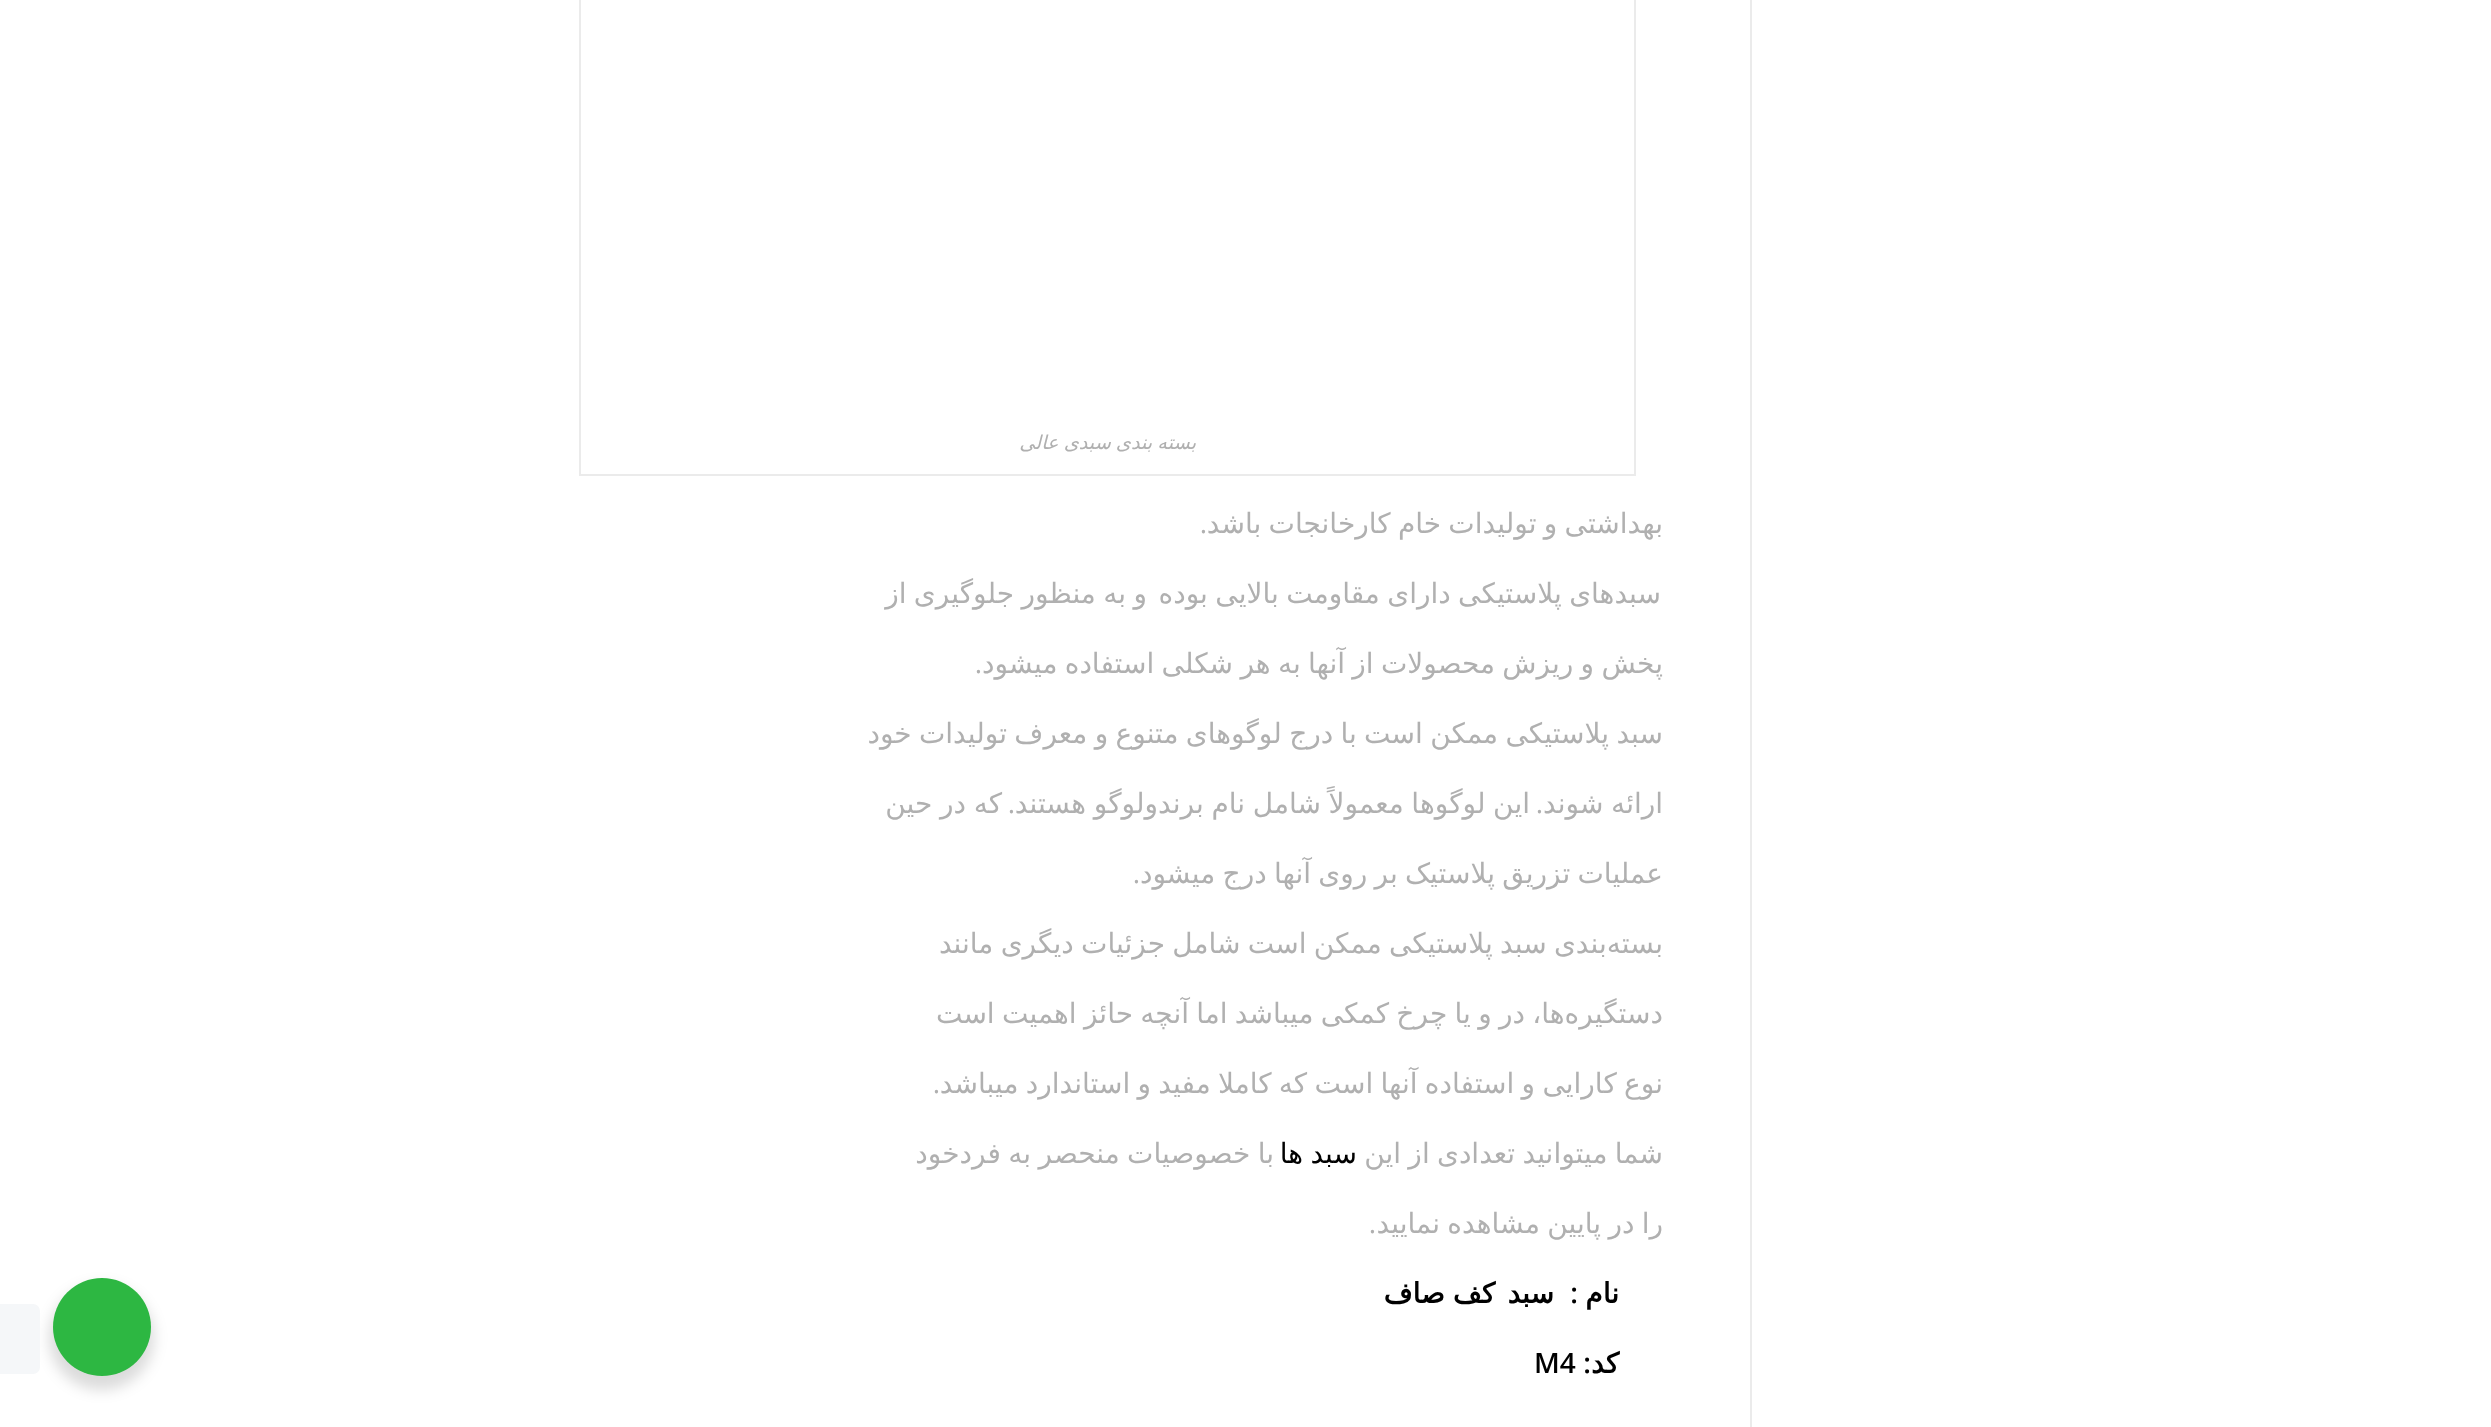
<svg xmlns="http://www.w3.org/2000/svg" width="2491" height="1427">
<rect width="100%" height="100%" fill="#fff"/>
<rect x="1750" width="2" height="1427" fill="#ebebeb"/>
<rect x="580" y="-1" width="1055" height="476" fill="none" stroke="#ebebeb" stroke-width="2"/>
<text x="1196" y="449" word-spacing="-1" style="font-family:DejaVu Sans;font-size:19.25px;font-style:italic;direction:rtl;fill:#b0b0b0">بسته بندی سبدی عالی</text>
<text x="1663" y="533" word-spacing="-1.6" style="font-family:DejaVu Sans;font-size:28px;direction:rtl;fill:#b0b0b0">بهداشتی و تولیدات خام کارخانجات باشد</text>
<text x="1207" y="533" style="font-family:Open Sans;font-size:28px;direction:rtl;fill:#b0b0b0">.</text>
<text x="1661" y="603" word-spacing="-1.5" style="font-family:DejaVu Sans;font-size:28px;direction:rtl;fill:#b0b0b0">سبدهای پلاستیکی دارای مقاومت بالایی بوده</text>
<text x="1147" y="603" word-spacing="-1.5" style="font-family:DejaVu Sans;font-size:28px;direction:rtl;fill:#b0b0b0">و به منظور جلوگیری از</text>
<text x="1663" y="673" word-spacing="-1.6" style="font-family:DejaVu Sans;font-size:28px;direction:rtl;fill:#b0b0b0">پخش و ریزش محصولات از آنها به هر شکلی استفاده میشود</text>
<text x="982" y="673" style="font-family:Open Sans;font-size:28px;direction:rtl;fill:#b0b0b0">.</text>
<text x="1663" y="743" word-spacing="-1.6" style="font-family:DejaVu Sans;font-size:28px;direction:rtl;fill:#b0b0b0">سبد پلاستیکی ممکن است با درج لوگوهای متنوع و معرف تولیدات خود</text>
<text x="1663" y="813" word-spacing="-1.25" style="font-family:DejaVu Sans;font-size:28px;direction:rtl;fill:#b0b0b0">ارائه شوند</text>
<text x="1543" y="813" style="font-family:Open Sans;font-size:28px;direction:rtl;fill:#b0b0b0">.</text>
<text x="1530" y="813" word-spacing="-1.25" style="font-family:DejaVu Sans;font-size:28px;direction:rtl;fill:#b0b0b0">این لوگوها معمولاً شامل نام برندولوگو هستند</text>
<text x="1015" y="813" style="font-family:Open Sans;font-size:28px;direction:rtl;fill:#b0b0b0">.</text>
<text x="1002" y="813" word-spacing="-1.25" style="font-family:DejaVu Sans;font-size:28px;direction:rtl;fill:#b0b0b0">که در حین</text>
<text x="1663" y="883" word-spacing="-1.6" style="font-family:DejaVu Sans;font-size:28px;direction:rtl;fill:#b0b0b0">عملیات تزریق پلاستیک بر روی آنها درج میشود</text>
<text x="1140" y="883" style="font-family:Open Sans;font-size:28px;direction:rtl;fill:#b0b0b0">.</text>
<text x="1663" y="953" word-spacing="-1.6" style="font-family:DejaVu Sans;font-size:28px;direction:rtl;fill:#b0b0b0">بسته‌بندی سبد پلاستیکی ممکن است شامل جزئیات دیگری مانند</text>
<text x="1663" y="1023" word-spacing="-1.6" style="font-family:DejaVu Sans;font-size:28px;direction:rtl;fill:#b0b0b0">دستگیره‌ها، در و یا چرخ کمکی میباشد اما آنچه حائز اهمیت است</text>
<text x="1663" y="1093" word-spacing="-1.6" style="font-family:DejaVu Sans;font-size:28px;direction:rtl;fill:#b0b0b0">نوع کارایی و استفاده آنها است که کاملا مفید و استاندارد میباشد</text>
<text x="940" y="1093" style="font-family:Open Sans;font-size:28px;direction:rtl;fill:#b0b0b0">.</text>
<text x="1663" y="1163" word-spacing="-1.6" style="font-family:DejaVu Sans;font-size:28px;direction:rtl;fill:#b0b0b0">شما میتوانید تعدادی از این</text>
<text x="1357" y="1163" word-spacing="-1.6" style="font-family:DejaVu Sans;font-size:28px;direction:rtl;fill:#000">سبد ها</text>
<text x="1274" y="1163" word-spacing="-1.5" style="font-family:DejaVu Sans;font-size:28px;direction:rtl;fill:#b0b0b0">با خصوصیات منحصر به فردخود</text>
<text x="1663" y="1233" word-spacing="-1.6" style="font-family:DejaVu Sans;font-size:28px;direction:rtl;fill:#b0b0b0">را در پایین مشاهده نمایید</text>
<text x="1376" y="1233" style="font-family:Open Sans;font-size:28px;direction:rtl;fill:#b0b0b0">.</text>
<text x="1619" y="1303" style="font-family:DejaVu Sans;font-size:28px;font-weight:bold;direction:rtl;fill:#000">نام</text>
<text x="1578" y="1303" style="font-family:Open Sans;font-size:28px;font-weight:600;direction:rtl;fill:#000">:</text>
<text x="1554" y="1303" style="font-family:DejaVu Sans;font-size:28px;font-weight:bold;direction:rtl;fill:#000">سبد</text>
<text x="1495" y="1303" word-spacing="-1" style="font-family:DejaVu Sans;font-size:28px;font-weight:bold;direction:rtl;fill:#000">کف صاف</text>
<text x="1619" y="1373" style="font-family:DejaVu Sans;font-size:28px;font-weight:bold;direction:rtl;fill:#000">کد</text>
<text x="1591" y="1373" style="font-family:Open Sans;font-size:28px;font-weight:600;direction:rtl;fill:#000">:</text>
<text x="1534" y="1373" style="font-family:Open Sans;font-size:28px;font-weight:600;fill:#000">M4</text>
<rect x="49" y="1285" width="105" height="105" rx="52.5" fill="#00000024" filter="blur(7px)"/>
<circle cx="102" cy="1327" r="49" fill="#2db742"/>
<rect x="-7" y="1304" width="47" height="70" rx="7" fill="#f5f7f9"/>
</svg>
